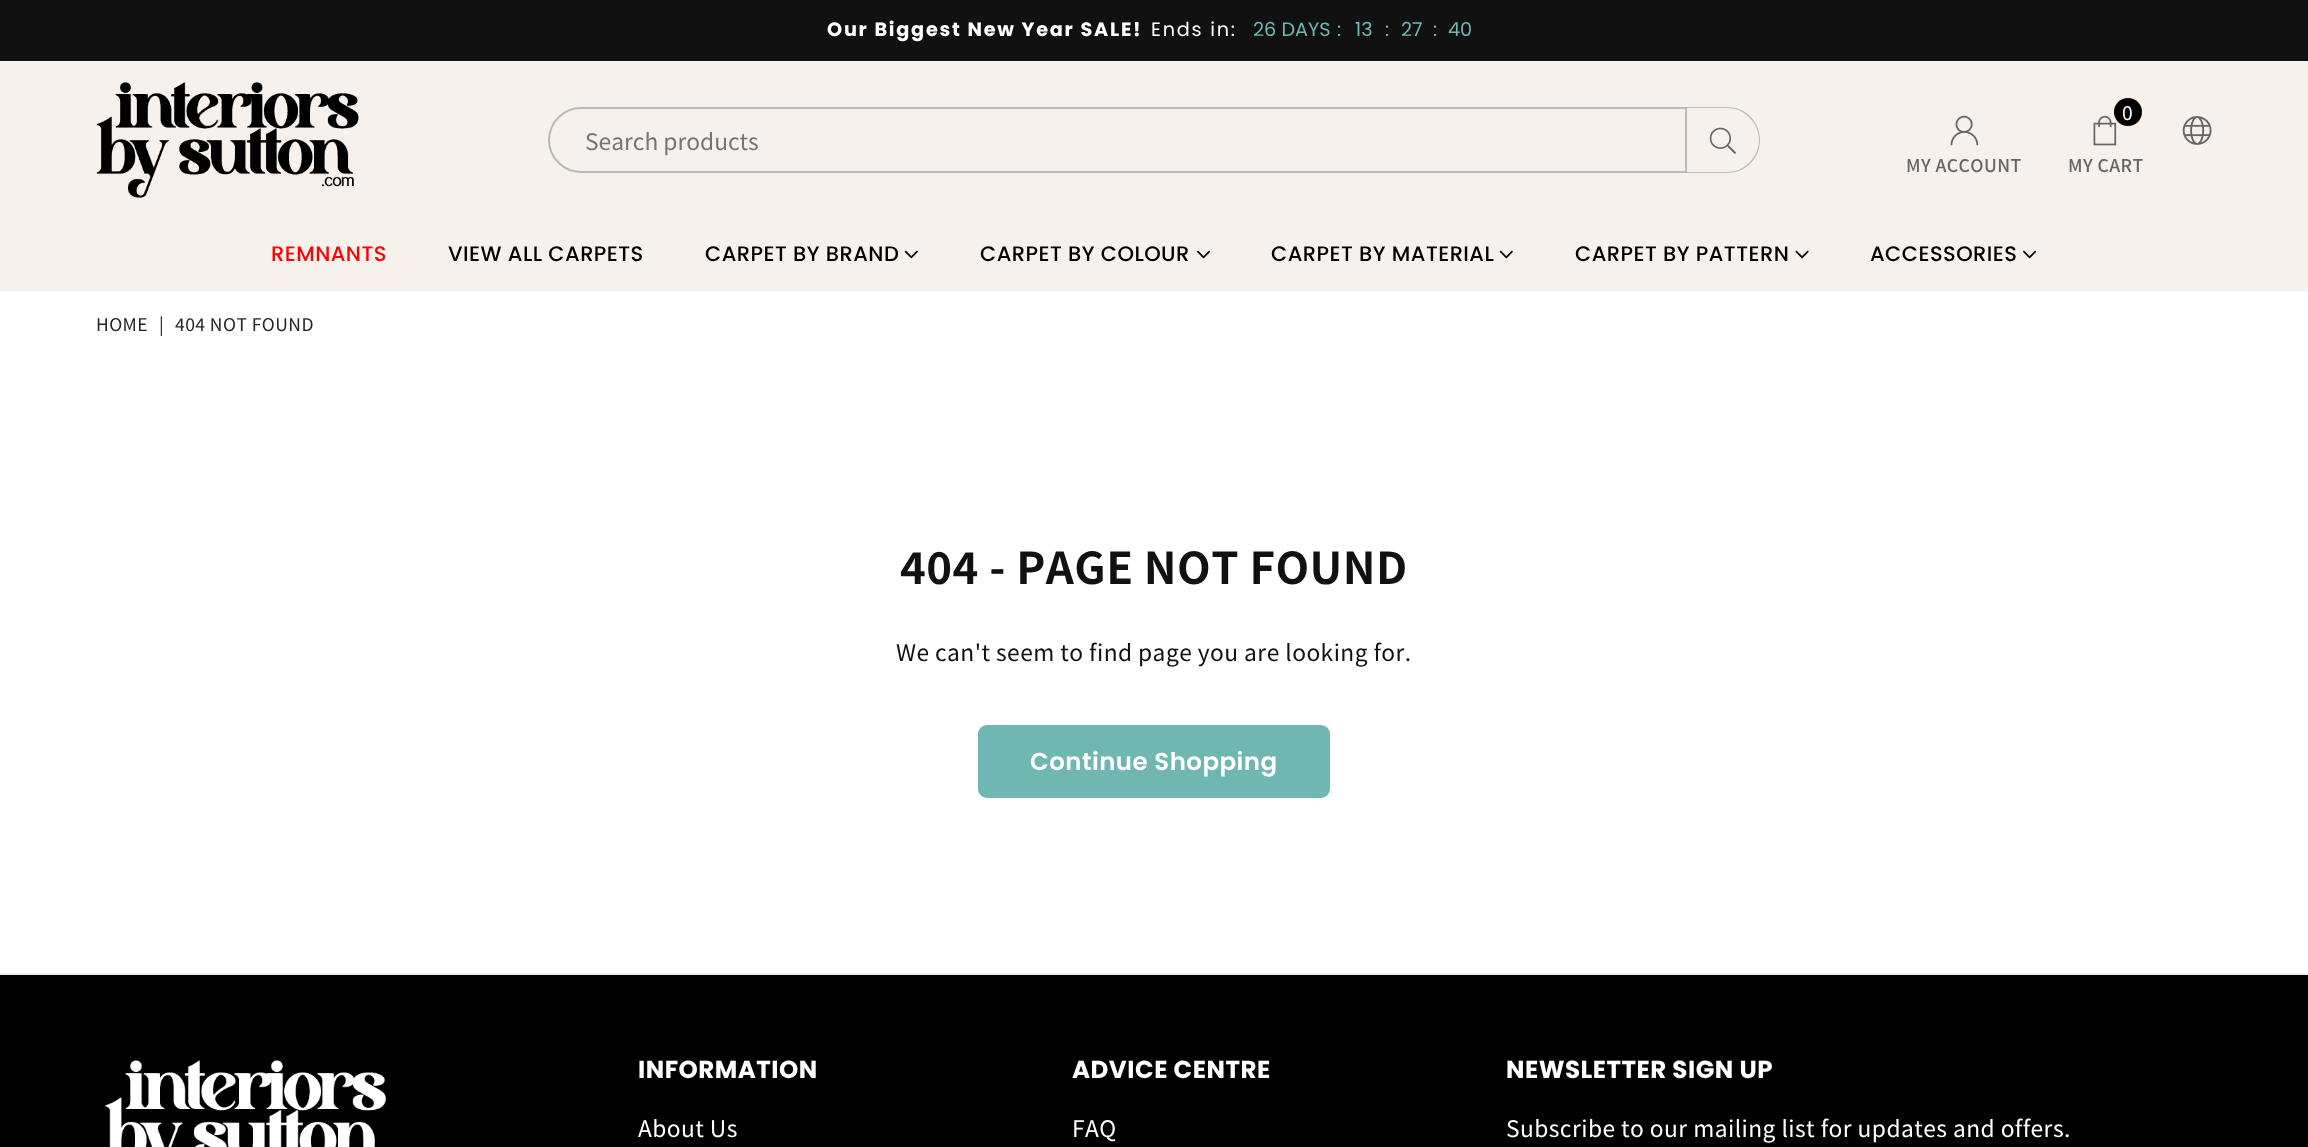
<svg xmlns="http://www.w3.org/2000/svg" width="2308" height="1147">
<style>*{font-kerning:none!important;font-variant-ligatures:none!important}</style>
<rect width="100%" height="100%" fill="#fff"/>
<rect width="2308" height="61" fill="#111"/>
<text x="827" y="36" style="font-family:Poppins;font-size:19.25px;font-weight:bold;letter-spacing:1.75px;fill:#fff">Our Biggest New Year SALE!</text>
<text x="1151" y="36" style="font-family:Poppins;font-size:19.25px;letter-spacing:1.75px;fill:#fff">Ends in:</text>
<text x="1253" y="36" style="font-family:Poppins;font-size:19.25px;fill:#70b7b3">26 DAYS</text>
<text x="1337" y="36" style="font-family:Poppins;font-size:19.25px;letter-spacing:1.75px;fill:#70b7b3">:</text>
<text x="1355" y="36" style="font-family:Poppins;font-size:19.25px;fill:#70b7b3">13</text>
<text x="1385" y="36" style="font-family:Poppins;font-size:19.25px;letter-spacing:1.75px;fill:#70b7b3">:</text>
<text x="1401" y="36" style="font-family:Poppins;font-size:19.25px;fill:#70b7b3">27</text>
<text x="1433" y="36" style="font-family:Poppins;font-size:19.25px;letter-spacing:1.75px;fill:#70b7b3">:</text>
<text x="1448" y="36" style="font-family:Poppins;font-size:19.25px;fill:#70b7b3">40</text>
<rect y="61" width="2308" height="230" fill="#f6f1ec"/>
<image x="96" y="82" width="263" height="116" href="media/1.png"/>
<path d="M581 108h1105v64h-1105c-17.5 0-32-14.5-32-32c0-17.5 14.5-32 32-32z" fill="none" stroke="#bcb9b6" stroke-width="2"/>
<text x="585" y="150" style="font-family:Noto Sans JP;font-size:22.75px;fill:#757575">Search products</text>
<path d="M1687 107h40c19 0 33 15 33 33c0 18-14 33-33 33h-40zm0 1h40c18 0 32 15 32 32c0 17-14 32-32 32h-40z" fill="#bcb9b6" fill-rule="evenodd"/>
<image x="1709" y="127" width="27" height="27" href="media/2.png"/>
<image x="2093" y="115" width="24" height="31" href="media/3.png"/>
<circle cx="2128" cy="112" r="14" fill="#000"/>
<text x="2122" y="120" style="font-family:Noto Sans JP;font-size:19.25px;letter-spacing:0.45px;fill:#fff">0</text>
<text x="2068" y="172" style="font-family:Noto Sans JP;font-size:17.5px;font-weight:500;letter-spacing:0.45px;fill:#666">MY CART</text>
<image x="2182" y="116" width="30" height="29" href="media/4.png"/>
<image x="1950" y="115" width="29" height="31" href="media/5.png"/>
<text x="1906" y="172" style="font-family:Noto Sans JP;font-size:17.5px;font-weight:500;letter-spacing:0.45px;fill:#666">MY ACCOUNT</text>
<text x="271" y="261" style="font-family:Poppins;font-size:21px;font-weight:500;letter-spacing:0.45px;fill:#f00">REMNANTS</text>
<text x="448" y="261" style="font-family:Poppins;font-size:21px;font-weight:500;letter-spacing:0.45px;fill:#000">VIEW ALL CARPETS</text>
<text x="705" y="261" style="font-family:Poppins;font-size:21px;font-weight:500;letter-spacing:0.45px;fill:#000">CARPET BY BRAND</text>
<image x="904" y="250" width="14" height="9" href="media/6.png"/>
<text x="980" y="261" style="font-family:Poppins;font-size:21px;font-weight:500;letter-spacing:0.45px;fill:#000">CARPET BY COLOUR</text>
<image x="1197" y="250" width="14" height="9" href="media/7.png"/>
<text x="1271" y="261" style="font-family:Poppins;font-size:21px;font-weight:500;letter-spacing:0.45px;fill:#000">CARPET BY MATERIAL</text>
<image x="1499" y="250" width="14" height="9" href="media/6.png"/>
<text x="1575" y="261" style="font-family:Poppins;font-size:21px;font-weight:500;letter-spacing:0.45px;fill:#000">CARPET BY PATTERN</text>
<image x="1795" y="250" width="14" height="9" href="media/8.png"/>
<text x="1870" y="261" style="font-family:Poppins;font-size:21px;font-weight:500;letter-spacing:0.45px;fill:#000">ACCESSORIES</text>
<image x="2023" y="250" width="14" height="9" href="media/7.png"/>
<text x="96" y="331" style="font-family:Noto Sans JP;font-size:17.5px;letter-spacing:0.45px;fill:#222">HOME</text>
<text x="159" y="331" style="font-family:Noto Sans JP;font-size:17.5px;letter-spacing:0.45px;fill:#222">|</text>
<text x="175" y="331" style="font-family:Noto Sans JP;font-size:17.5px;letter-spacing:0.45px;fill:#222">404 NOT FOUND</text>
<text x="900" y="584" style="font-family:Noto Sans JP;font-size:43.75px;font-weight:bold;letter-spacing:0.45px;fill:#111">404 - PAGE NOT FOUND</text>
<text x="896" y="661" style="font-family:Noto Sans JP;font-size:22.75px;letter-spacing:0.45px;fill:#111">We can't seem to find page you are looking for.</text>
<rect x="978" y="725" width="352" height="73" rx="9" fill="#70b7b3"/>
<text x="1030" y="770" style="font-family:Poppins;font-size:24.5px;font-weight:600;letter-spacing:0.45px;fill:#fff">Continue Shopping</text>
<rect y="975" width="2308" height="172" fill="#000"/>
<rect y="973" width="2308" height="2" fill="#eee"/>
<image x="104" y="1060" width="282" height="87" href="media/9.png"/>
<text x="638" y="1078" style="font-family:Poppins;font-size:24.5px;font-weight:bold;letter-spacing:0.5px;fill:#fff">INFORMATION</text>
<text x="638" y="1137" style="font-family:Noto Sans JP;font-size:22.75px;letter-spacing:0.45px;fill:#fff">About Us</text>
<text x="1072" y="1078" style="font-family:Poppins;font-size:24.5px;font-weight:bold;letter-spacing:0.5px;fill:#fff">ADVICE CENTRE</text>
<text x="1072" y="1137" style="font-family:Noto Sans JP;font-size:22.75px;letter-spacing:0.45px;fill:#fff">FAQ</text>
<text x="1506" y="1078" style="font-family:Poppins;font-size:24.5px;font-weight:bold;letter-spacing:0.5px;fill:#fff">NEWSLETTER SIGN UP</text>
<text x="1506" y="1137" style="font-family:Noto Sans JP;font-size:22.75px;letter-spacing:0.45px;fill:#fff">Subscribe to our mailing list for updates and offers.</text>
</svg>
